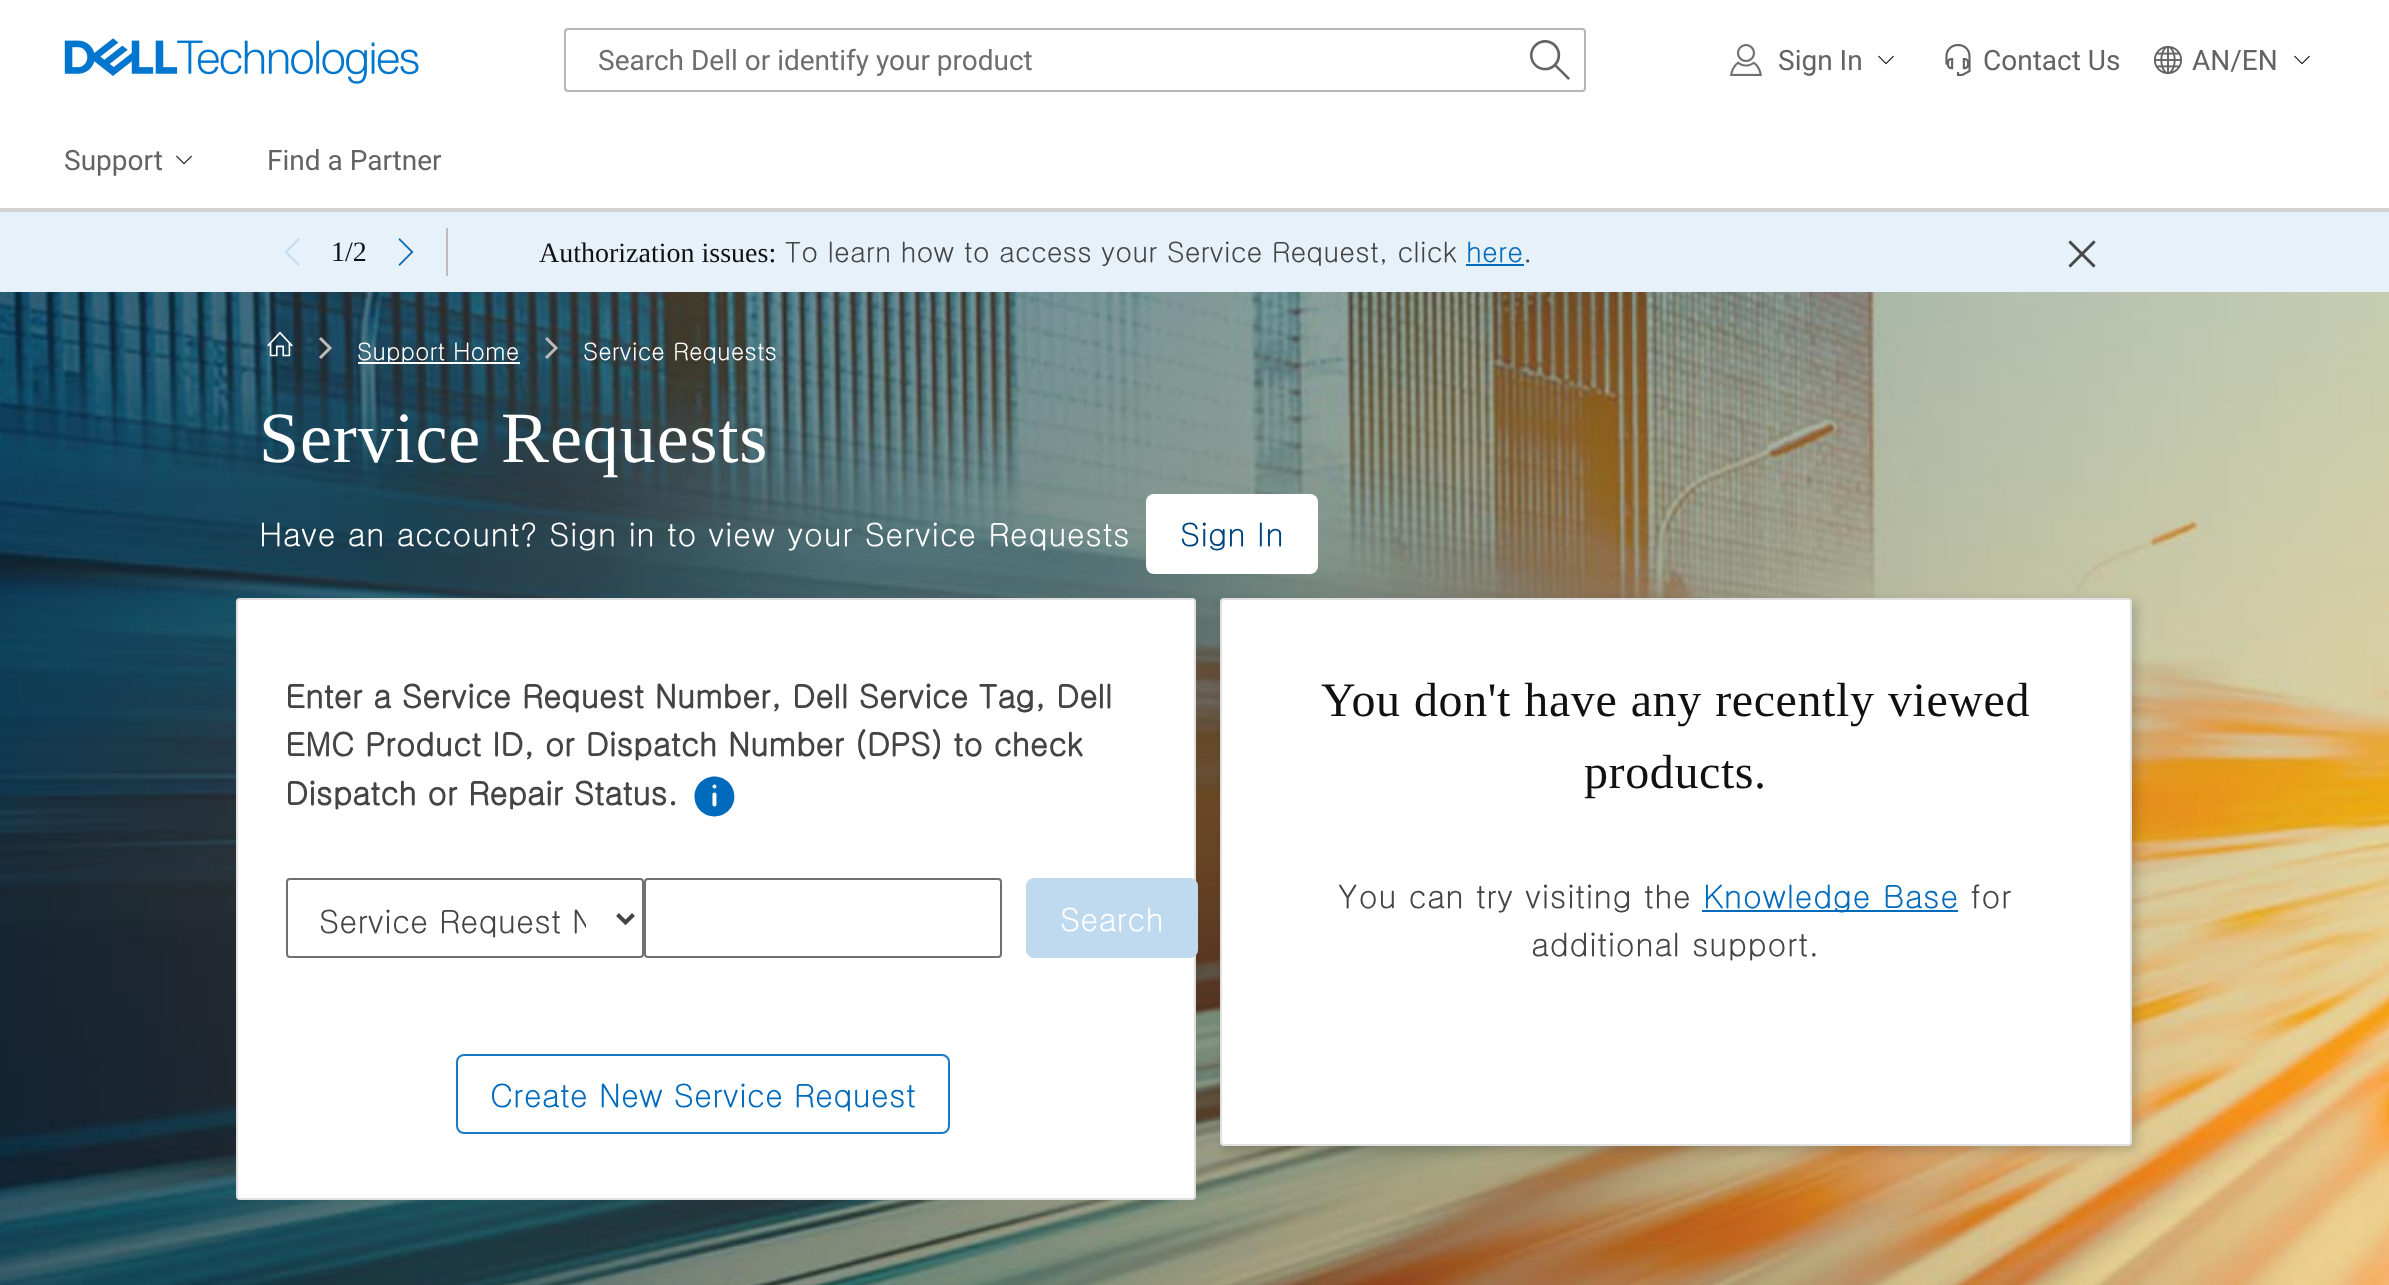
<svg xmlns="http://www.w3.org/2000/svg" width="2389" height="1285">
<defs>
<clipPath id="clip1"><rect x="320" y="894" width="266" height="50"/></clipPath>
</defs>
<rect width="100%" height="100%" fill="#fff"/>
<rect y="208" width="2389" height="4" fill="#d2d2d2"/>
<image x="64" y="38" width="355" height="46" href="media/1.png"/>
<rect x="565" y="29" width="1020" height="62" rx="3" fill="none" stroke="#b6b6b6" stroke-width="2"/>
<text x="598" y="70" style="font-family:Roboto;font-size:28px;fill:#6e6e6e">Search Dell or identify your product</text>
<image x="1530" y="40" width="40" height="40" href="media/2.png"/>
<image x="1730" y="44" width="32" height="32" href="media/3.png"/>
<text x="1778" y="70" style="font-family:Roboto;font-size:28px;fill:#636363">Sign In</text>
<image x="1878" y="55" width="16" height="10" href="media/4.png"/>
<image x="1945" y="44" width="26" height="32" href="media/5.png"/>
<text x="1983" y="70" style="font-family:Roboto;font-size:28px;fill:#636363">Contact Us</text>
<image x="2153" y="45" width="30" height="30" href="media/6.png"/>
<text x="2192" y="70" style="font-family:Roboto;font-size:28px;fill:#636363">AN/EN</text>
<image x="2294" y="55" width="16" height="10" href="media/4.png"/>
<text x="64" y="170" style="font-family:Roboto;font-size:28px;fill:#636363">Support</text>
<image x="176" y="155" width="16" height="10" href="media/4.png"/>
<text x="267" y="170" style="font-family:Roboto;font-size:28px;fill:#636363">Find a Partner</text>
<rect y="212" width="2389" height="80" fill="#e6f1f9"/>
<path d="M299.5 239.5l-1-1.5l-14 14l14 14l1-1.5l-12.5-12.5z" fill="#bfdaee"/>
<text x="331" y="261" style="font-family:Liberation Serif;font-size:28px;fill:#111">1/2</text>
<path d="M399.5 238l-1 1.5l12.5 12.5l-12.5 12.5l1 1.5l14-14z" fill="#006bbd"/>
<rect x="446" y="228" width="2" height="48" fill="#bbb"/>
<text x="539" y="262" style="font-family:Liberation Serif;font-size:28px;fill:#111">Authorization issues:</text>
<text x="785" y="262" style="font-family:Gulim;font-size:28px;fill:#444">To learn how to access your Service Request, click</text>
<text x="1466" y="262" style="font-family:Gulim;font-size:28px;fill:#006bbd">here</text>
<rect x="1466" y="264" width="58" height="2" fill="#006bbd"/>
<text x="1523" y="262" style="font-family:Gulim;font-size:28px;fill:#444">.</text>
<image x="2068" y="240" width="28" height="28" href="media/7.png"/>
<image x="0" y="292" width="2389" height="993" href="media/8.png"/>
<image x="267" y="331" width="26" height="26" href="media/9.png"/>
<image x="319" y="337" width="13" height="22" href="media/10.png"/>
<rect x="358" y="362" width="162" height="2" fill="#fff"/>
<text x="357" y="360" style="font-family:Gulim;font-size:24px;fill:#fff">Support Home</text>
<image x="545" y="337" width="13" height="22" href="media/11.png"/>
<text x="583" y="360" style="font-family:Gulim;font-size:24px;fill:#fff">Service Requests</text>
<text x="259" y="462" word-spacing="1" style="font-family:Liberation Serif;font-size:72px;letter-spacing:0.9px;fill:#fff">Service Requests</text>
<text x="259" y="546" word-spacing="0.5" style="font-family:Gulim;font-size:32px;letter-spacing:0.38px;fill:#fff">Have an account? Sign in to view your Service Requests</text>
<rect x="1146" y="494" width="172" height="80" rx="8" fill="#fff"/>
<text x="1180" y="546" style="font-family:Gulim;font-size:32px;fill:#00447c">Sign In</text>
<rect x="236" y="598" width="960" height="602" rx="4" fill="#fff"/>
<rect x="237" y="599" width="958" height="600" rx="3" fill="none" stroke="#0000001f" stroke-width="2"/>
<text x="285" y="708" style="font-family:Gulim;font-size:32px;font-weight:bold;fill:#444">Enter a Service Request Number, Dell Service Tag, Dell</text>
<text x="285" y="756" style="font-family:Gulim;font-size:32px;font-weight:bold;fill:#444">EMC Product ID, or Dispatch Number (DPS) to check</text>
<text x="285" y="805" style="font-family:Gulim;font-size:32px;font-weight:bold;fill:#444">Dispatch or Repair Status.</text>
<image x="694" y="776" width="41" height="41" href="media/12.png"/>
<rect x="287" y="879" width="356" height="78" rx="3" fill="none" stroke="#707070" stroke-width="2"/>
<path d="M617.5 914.5l8 8l8-8" fill="none" stroke="#444" stroke-width="4"/>
<g clip-path="url(#clip1)">
<text x="319" y="933" style="font-family:Gulim;font-size:32px;fill:#444">Service Request N</text>
</g>
<rect x="645" y="879" width="356" height="78" rx="3" fill="none" stroke="#707070" stroke-width="2"/>
<rect x="1027" y="879" width="170" height="78" rx="7" fill="#bfdaee" stroke="#bfdaee" stroke-width="2"/>
<text x="1060" y="931" style="font-family:Gulim;font-size:32px;fill:#fff">Search</text>
<rect x="457" y="1055" width="492" height="78" rx="7" fill="none" stroke="#1a7ac4" stroke-width="2"/>
<text x="490" y="1107" style="font-family:Gulim;font-size:32px;fill:#006bbd">Create New Service Request</text>
<rect x="1224" y="602" width="912" height="548" rx="4" fill="#11111133" filter="blur(6px)"/>
<rect x="1220" y="598" width="912" height="548" rx="4" fill="#fff"/>
<rect x="1221" y="599" width="910" height="546" rx="3" fill="none" stroke="#0000001f" stroke-width="2"/>
<text x="1321" y="716" word-spacing="0.75" style="font-family:Liberation Serif;font-size:48px;letter-spacing:0.6px;fill:#111">You don't have any recently viewed</text>
<text x="1584" y="788" style="font-family:Liberation Serif;font-size:48px;letter-spacing:0.6px;fill:#111">products.</text>
<text x="1338" y="908" word-spacing="0.5" style="font-family:Gulim;font-size:32px;letter-spacing:0.38px;fill:#444">You can try visiting the</text>
<rect x="1702" y="910" width="256" height="2" fill="#006bbd"/>
<text x="1703" y="908" word-spacing="0.5" style="font-family:Gulim;font-size:32px;letter-spacing:0.38px;fill:#006bbd">Knowledge Base</text>
<text x="1970" y="908" style="font-family:Gulim;font-size:32px;letter-spacing:0.38px;fill:#444">for</text>
<text x="1531" y="956" word-spacing="0.5" style="font-family:Gulim;font-size:32px;letter-spacing:0.38px;fill:#444">additional support.</text>
</svg>
